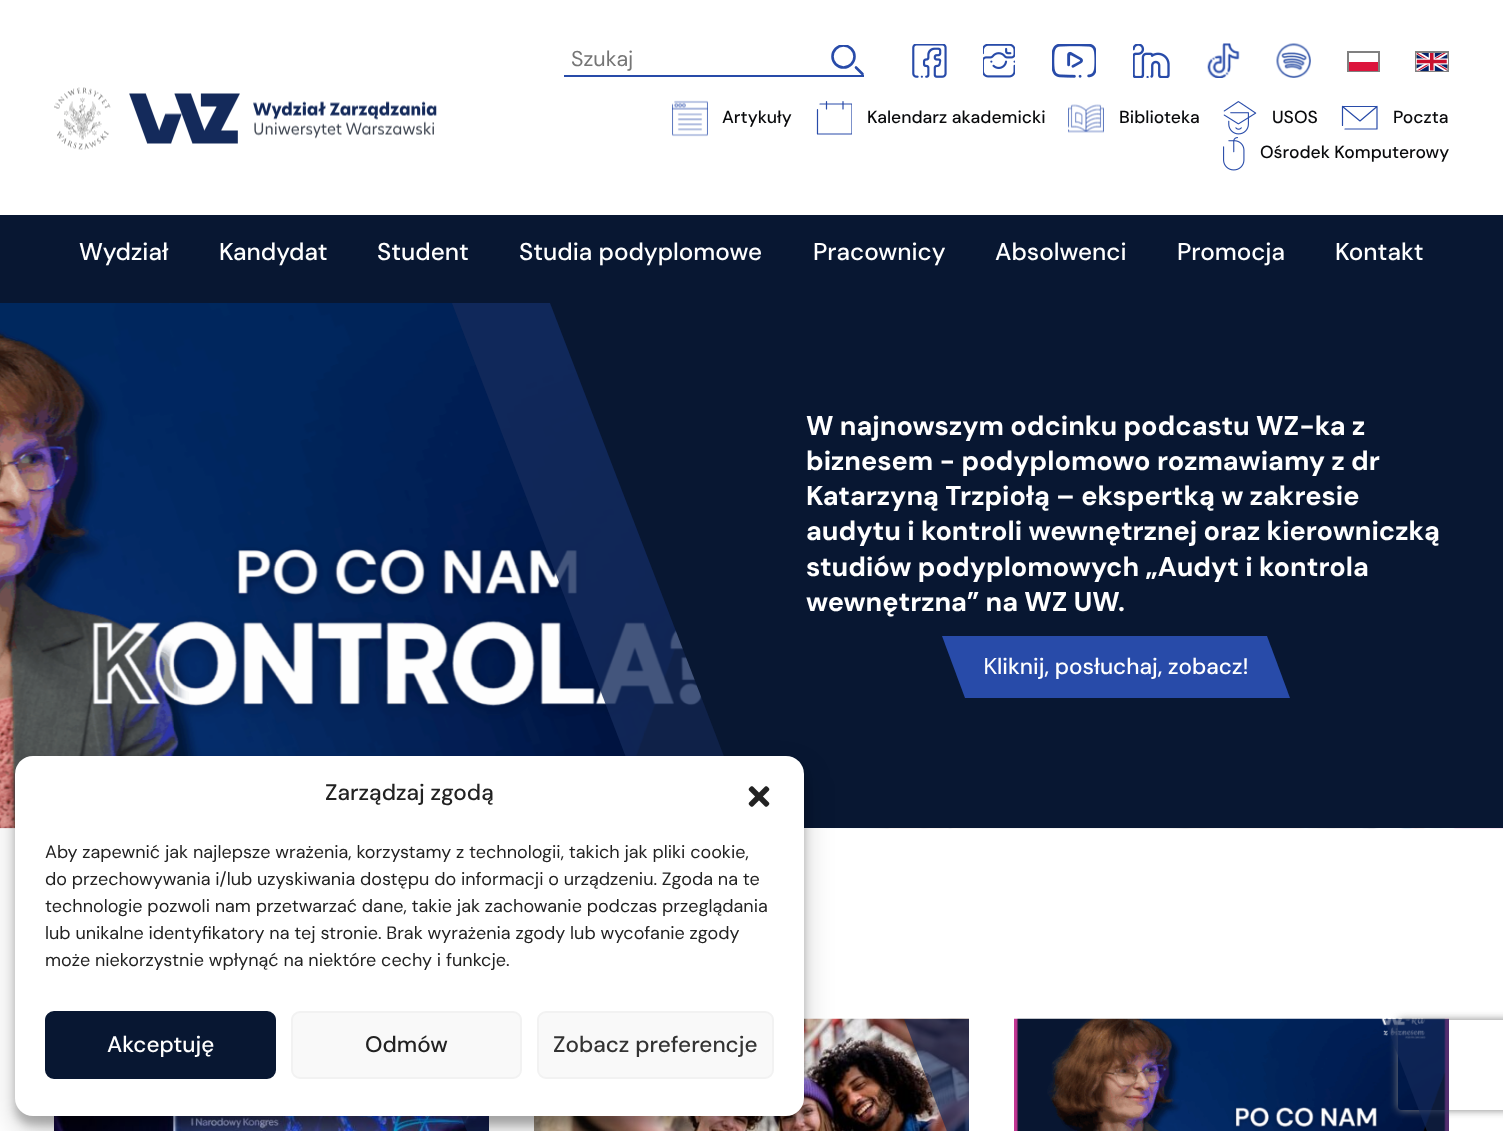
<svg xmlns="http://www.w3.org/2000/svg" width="1503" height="1131">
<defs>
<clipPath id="clip1"><rect x="831" y="45" width="33" height="32"/></clipPath>
<clipPath id="clip2"><rect x="816" y="101" width="36" height="34"/></clipPath>
<clipPath id="clip3"><rect x="54" y="303" width="698" height="525"/></clipPath>
<clipPath id="clip4"><rect x="54" y="1019" width="435" height="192"/></clipPath>
<clipPath id="clip5"><rect x="534" y="1019" width="435" height="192"/></clipPath>
<clipPath id="clip6"><path d="M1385 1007h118v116h-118zm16 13h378c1.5 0 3 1.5 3 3v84c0 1.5-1.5 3-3 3h-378c-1.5 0-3-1.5-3-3v-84c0-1.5 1.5-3 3-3z" clip-rule="evenodd"/></clipPath>
<clipPath id="clip7"><rect x="1014" y="1019" width="435" height="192"/></clipPath>
</defs>
<rect width="100%" height="100%" fill="#081732"/>
<rect width="1503" height="215" fill="#fff"/>
<image x="54" y="87" width="383" height="63" href="media/1.png"/>
<rect x="564" y="75" width="300" height="2" fill="#284ba9"/>
<text x="571" y="66" style="font-family:DM Sans;font-size:21.5px;fill:#757575">Szukaj</text>
<g clip-path="url(#clip1)">
<circle cx="843.5" cy="56.5" r="11" fill="none" stroke="#284ba9" stroke-width="2.6"/>
</g>
<path d="M856 67.5l6.5 6.5" fill="none" stroke="#284ba9" stroke-width="2.6" stroke-linecap="round"/>
<image x="912" y="44" width="35" height="34" href="media/2.png"/>
<image x="983" y="44" width="32" height="34" href="media/3.png"/>
<image x="1052" y="44" width="44" height="34" href="media/4.png"/>
<image x="1133" y="44" width="37" height="34" href="media/5.png"/>
<image x="1207" y="43" width="33" height="35" href="media/6.png"/>
<image x="1276" y="43" width="35" height="35" href="media/7.png"/>
<rect x="1348" y="52" width="31" height="19" fill="none" stroke="#808080" stroke-width="2"/>
<rect x="1349" y="62" width="29" height="9" fill="#dc143c"/>
<rect x="1416" y="52" width="32" height="19" fill="none" stroke="#808080" stroke-width="2"/>
<image x="1416" y="53" width="32" height="18" href="media/8.png"/>
<image x="672" y="100" width="36" height="37" href="media/9.png"/>
<text x="722" y="123" style="font-family:DM Sans;font-size:17.5px;font-weight:500;fill:#090a0c">Artykuły</text>
<text x="867" y="123" style="font-family:DM Sans;font-size:17.5px;font-weight:500;fill:#090a0c">Kalendarz akademicki</text>
<g clip-path="url(#clip2)">
<path d="M817.5 109.5v24.5h34.5v-30h-32" fill="none" stroke="#284ba9" stroke-width="1.2" stroke-linecap="round" stroke-linejoin="round"/>
</g>
<path d="M843 101.5v7.5m-16.5-7.5v7.5" fill="none" stroke="#284ba9" stroke-width="1.2" stroke-linecap="round" stroke-linejoin="round"/>
<image x="1068" y="104" width="36" height="29" href="media/10.png"/>
<text x="1119" y="123" style="font-family:DM Sans;font-size:17.5px;font-weight:500;fill:#090a0c">Biblioteka</text>
<image x="1223" y="101" width="34" height="34" href="media/11.png"/>
<text x="1272" y="123" style="font-family:DM Sans;font-size:17.5px;font-weight:500;fill:#090a0c">USOS</text>
<text x="1393" y="123" style="font-family:DM Sans;font-size:17.5px;font-weight:500;fill:#090a0c">Poczta</text>
<path d="M1342.5 125.5v-19h34.5v22.5h-32m-2.5-22.5l17.5 14.5l17-14.5" fill="none" stroke="#284ba9" stroke-width="1.2" stroke-linecap="round" stroke-linejoin="round"/>
<image x="1223" y="137" width="22" height="34" href="media/12.png"/>
<text x="1260" y="158" style="font-family:DM Sans;font-size:17.5px;font-weight:500;fill:#090a0c">Ośrodek Komputerowy</text>
<text x="79" y="260" style="font-family:DM Sans;font-size:24.25px;font-weight:500;fill:#fff">Wydział</text>
<text x="219" y="260" style="font-family:DM Sans;font-size:24.25px;font-weight:500;fill:#fff">Kandydat</text>
<text x="377" y="260" style="font-family:DM Sans;font-size:24.25px;font-weight:500;fill:#fff">Student</text>
<text x="519" y="260" style="font-family:DM Sans;font-size:24.25px;font-weight:500;fill:#fff">Studia podyplomowe</text>
<text x="813" y="260" style="font-family:DM Sans;font-size:24.25px;font-weight:500;fill:#fff">Pracownicy</text>
<text x="995" y="260" style="font-family:DM Sans;font-size:24.25px;font-weight:500;fill:#fff">Absolwenci</text>
<text x="1177" y="260" style="font-family:DM Sans;font-size:24.25px;font-weight:500;fill:#fff">Promocja</text>
<text x="1335" y="260" style="font-family:DM Sans;font-size:24.25px;font-weight:500;fill:#fff">Kontakt</text>
<rect y="828" width="1503" height="303" fill="#fff"/>
<image x="0" y="303" width="724" height="526" href="media/13.png"/>
<path d="M452 303h104l202 525h-105z" fill="#142a5bcc"/>
<g clip-path="url(#clip3)">
<path d="M550 303h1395l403 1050h-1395z" fill="#081732"/>
</g>
<text x="806" y="435" style="font-family:DM Sans;font-size:27px;font-weight:bold;fill:#fff">W najnowszym odcinku podcastu WZ-ka z</text>
<text x="806" y="470" style="font-family:DM Sans;font-size:27px;font-weight:bold;fill:#fff">biznesem - podyplomowo rozmawiamy z dr</text>
<text x="806" y="505" style="font-family:DM Sans;font-size:27px;font-weight:bold;fill:#fff">Katarzyną Trzpiołą – ekspertką w zakresie</text>
<text x="806" y="540" style="font-family:DM Sans;font-size:27px;font-weight:bold;fill:#fff">audytu i kontroli wewnętrznej oraz kierowniczką</text>
<text x="806" y="576" style="font-family:DM Sans;font-size:27px;font-weight:bold;fill:#fff">studiów podyplomowych „Audyt i kontrola</text>
<text x="806" y="611" style="font-family:DM Sans;font-size:27px;font-weight:bold;fill:#fff">wewnętrzna” na WZ UW.</text>
<path d="M942 636h325l23 62h-325z" fill="#284ba9"/>
<text x="983" y="674" style="font-family:Noto Sans;font-size:22.5px;fill:#fff">K</text>
<text x="997" y="674" style="font-family:DM Sans;font-size:22.5px;font-weight:500;fill:#fff">liknij, posłuchaj, zobacz!</text>
<image x="826" y="828" width="677" height="1" href="media/14.png"/>
<image x="54" y="1116" width="435" height="15" href="media/15.png"/>
<g clip-path="url(#clip4)">
<path d="M424 1019h143l74 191h-144z" fill="#142a5ba3"/>
</g>
<image x="534" y="1018" width="435" height="113" href="media/16.png"/>
<g clip-path="url(#clip5)">
<path d="M904 1019h143l73 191h-143z" fill="#142a5ba3"/>
</g>
<image x="1014" y="1018" width="435" height="113" href="media/17.png"/>
<g clip-path="url(#clip6)">
<rect x="1398" y="1020" width="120" height="90" rx="3" fill="#808080" filter="blur(4px)"/>
</g>
<g clip-path="url(#clip7)">
<path d="M1384 1019h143l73 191h-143z" fill="#142a5ba3"/>
</g>
<rect x="15" y="765" width="789" height="360" rx="18" fill="#0000003b" filter="blur(4.5px)"/>
<rect x="15" y="771" width="789" height="360" rx="18" fill="#00000030" filter="blur(15px)"/>
<rect x="15" y="756" width="789" height="360" rx="18" fill="#fff"/>
<text x="325" y="800" style="font-family:DM Sans;font-size:22.5px;font-weight:500;fill:#222">Zarządzaj zgodą</text>
<image x="748" y="786" width="22" height="21" href="media/18.png"/>
<text x="45" y="858" style="font-family:DM Sans;font-size:18px;fill:#222">Aby zapewnić jak najlepsze wrażenia, korzystamy z technologii, takich jak pliki cookie,</text>
<text x="45" y="885" style="font-family:DM Sans;font-size:18px;fill:#222">do przechowywania i/lub uzyskiwania dostępu do informacji o urządzeniu. Zgoda na te</text>
<text x="45" y="912" style="font-family:DM Sans;font-size:18px;fill:#222">technologie pozwoli nam przetwarzać dane, takie jak zachowanie podczas przeglądania</text>
<text x="45" y="939" style="font-family:DM Sans;font-size:18px;fill:#222">lub unikalne identyfikatory na tej stronie. Brak wyrażenia zgody lub wycofanie zgody</text>
<text x="45" y="966" style="font-family:DM Sans;font-size:18px;fill:#222">może niekorzystnie wpłynąć na niektóre cechy i funkcje.</text>
<rect x="46" y="1012" width="229" height="66" rx="8" fill="#081732" stroke="#081732" stroke-width="2"/>
<text x="107" y="1052" style="font-family:DM Sans;font-size:22.5px;font-weight:500;fill:#fff">Akceptuję</text>
<rect x="292" y="1012" width="229" height="66" rx="8" fill="#f9f9f9" stroke="#f2f2f2" stroke-width="2"/>
<text x="365" y="1052" style="font-family:DM Sans;font-size:22.5px;font-weight:500;fill:#222">Odmów</text>
<rect x="538" y="1012" width="235" height="66" rx="8" fill="#f9f9f9" stroke="#f2f2f2" stroke-width="2"/>
<text x="553" y="1052" style="font-family:DM Sans;font-size:22.5px;font-weight:500;fill:#333">Zobacz preferencje</text>
</svg>
